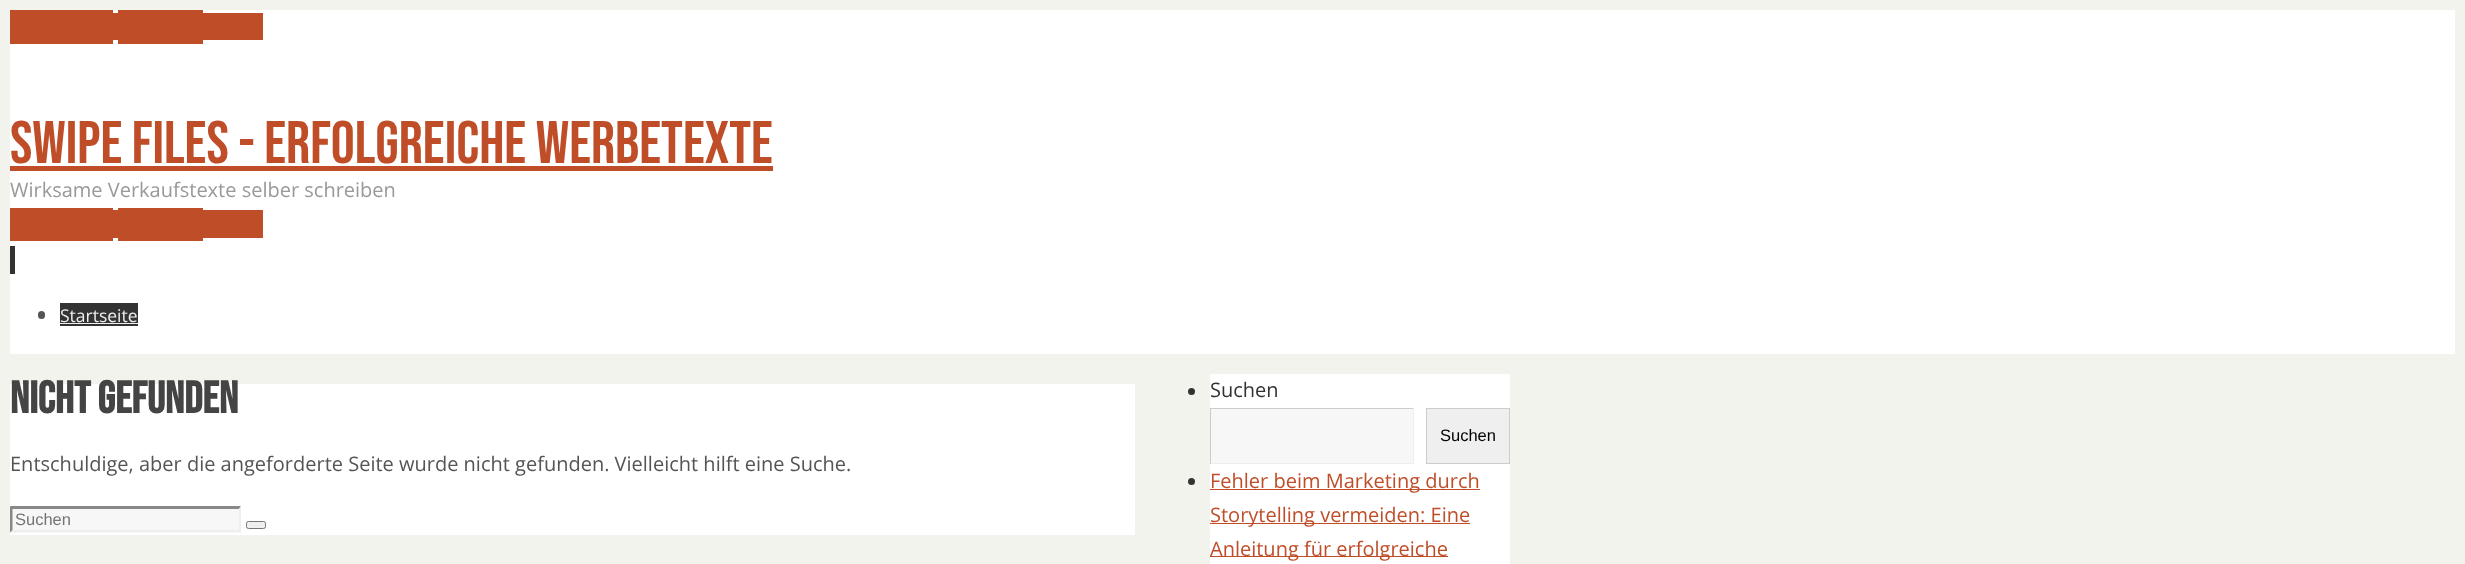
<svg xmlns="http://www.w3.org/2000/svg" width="2465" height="564">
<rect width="100%" height="100%" fill="#f3f3ee"/>
<rect x="113" y="10" width="2342" height="34" fill="#fff"/>
<rect x="10" y="10" width="103" height="34" fill="#bf4d28"/>
<rect x="113" y="13" width="5" height="27" fill="#bf4d28"/>
<rect x="118" y="10" width="85" height="34" fill="#bf4d28"/>
<rect x="203" y="13" width="60" height="27" fill="#bf4d28"/>
<rect x="10" y="44" width="2445" height="310" fill="#fff"/>
<text x="10" y="163" style="font-family:Bebas Neue;font-size:60px;fill:#bf4d28">Swipe Files - Erfolgreiche Werbetexte</text>
<rect x="10" y="166" width="763" height="5" fill="#bf4d28"/>
<text x="10" y="197" style="font-family:Open Sans;font-size:20px;fill:#999">Wirksame Verkaufstexte selber schreiben</text>
<rect x="10" y="208" width="103" height="33" fill="#bf4d28"/>
<rect x="113" y="210" width="5" height="28" fill="#bf4d28"/>
<rect x="118" y="208" width="85" height="33" fill="#bf4d28"/>
<rect x="203" y="210" width="60" height="28" fill="#bf4d28"/>
<rect x="10" y="246" width="5" height="28" fill="#333"/>
<rect x="38" y="311" width="7" height="8" rx="3.5" fill="#555"/>
<rect x="60" y="303" width="78" height="23" fill="#333"/>
<text x="60" y="322" style="font-family:Open Sans;font-size:17.5px;fill:#eee">Startseite</text>
<rect x="60" y="323" width="78" height="1" fill="#eee"/>
<rect x="10" y="384" width="1125" height="151" fill="#fff"/>
<text x="10" y="413" style="font-family:Bebas Neue;font-size:45px;font-weight:bold;fill:#444">Nicht gefunden</text>
<text x="10" y="471" style="font-family:Open Sans;font-size:20px;fill:#555">Entschuldige, aber die angeforderte Seite wurde nicht gefunden. Vielleicht hilft eine Suche.</text>
<rect x="10" y="506" width="231" height="27" fill="#f7f7f7"/>
<path d="M10 506h231l-2 3h-227z" fill="#888"/>
<path d="M241 506v26.5l-2-2.5v-21z" fill="#eee"/>
<path d="M241 532h-231l2-2h227z" fill="#eee"/>
<path d="M10 532.5v-26.5l2.5 3v21z" fill="#888"/>
<text x="15" y="525" style="font-family:Liberation Sans;font-size:16.5px;fill:#757575">Suchen</text>
<rect x="246.5" y="521.5" width="19" height="7" rx="2" fill="#efefef" stroke="#767676"/>
<rect x="1210" y="374" width="300" height="190" fill="#fff"/>
<circle cx="1191.5" cy="391.5" r="3.5" fill="#333"/>
<text x="1210" y="397" style="font-family:Open Sans;font-size:20px;fill:#333">Suchen</text>
<rect x="1211" y="409" width="202" height="54" fill="#f7f7f7"/>
<rect x="1210" y="408" width="204" height="1" fill="#ccc"/>
<rect x="1413" y="408" width="1" height="56" fill="#eee"/>
<rect x="1210" y="463" width="204" height="1" fill="#eee"/>
<rect x="1210" y="408" width="1" height="56" fill="#ccc"/>
<rect x="1426.5" y="408.5" width="83" height="55" fill="#efefef" stroke="#ccc"/>
<text x="1440" y="441" style="font-family:Liberation Sans;font-size:16.5px;fill:#000">Suchen</text>
<circle cx="1191.5" cy="481.5" r="3.5" fill="#333"/>
<rect x="1210" y="489" width="270" height="1" fill="#bf4d28"/>
<text x="1210" y="488" style="font-family:Open Sans;font-size:20px;fill:#bf4d28">Fehler beim Marketing durch</text>
<rect x="1210" y="523" width="260" height="1" fill="#bf4d28"/>
<text x="1210" y="522" style="font-family:Open Sans;font-size:20px;fill:#bf4d28">Storytelling vermeiden: Eine</text>
<rect x="1210" y="556" width="238" height="1" fill="#bf4d28"/>
<text x="1210" y="556" style="font-family:Open Sans;font-size:20px;fill:#bf4d28">Anleitung für erfolgreiche</text>
</svg>
